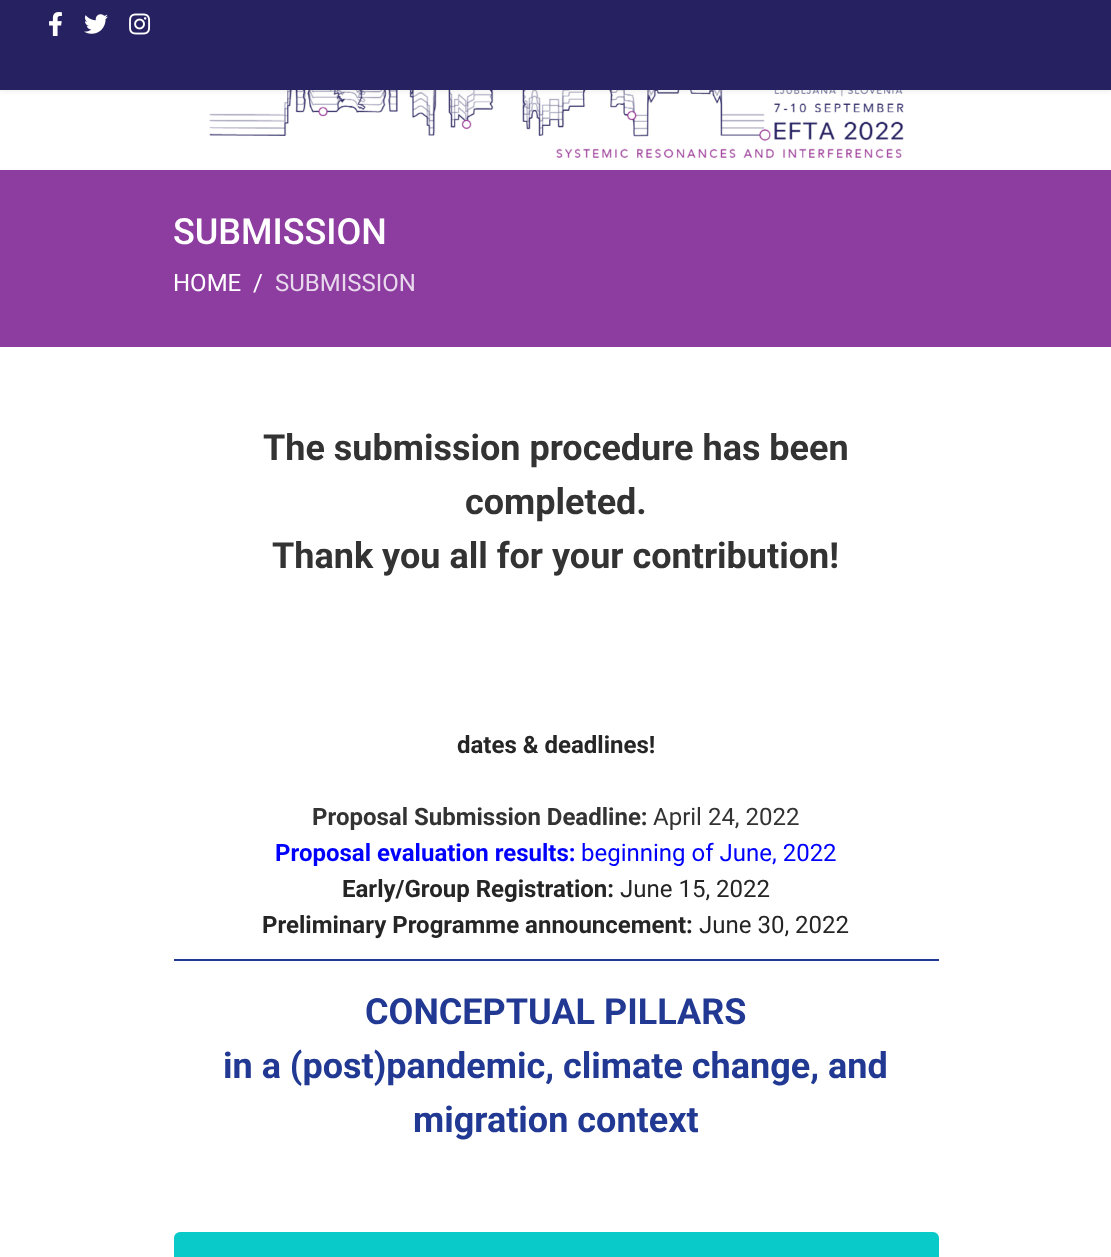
<svg xmlns="http://www.w3.org/2000/svg" width="1111" height="1257">
<rect width="100%" height="100%" fill="#fff"/>
<image x="209" y="90" width="695" height="68" href="media/4.png"/>
<rect width="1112" height="90" fill="#0000001a" filter="blur(3px)"/>
<rect width="1111" height="90" fill="#262161"/>
<image x="49" y="12" width="13" height="24" href="media/1.png"/>
<image x="84" y="14" width="24" height="20" href="media/2.png"/>
<image x="129" y="13" width="22" height="22" href="media/3.png"/>
<rect y="170" width="1111" height="177" fill="#8d3da0"/>
<text x="173" y="244" style="font-family:Roboto;font-size:36px;font-weight:500;fill:#fff">SUBMISSION</text>
<text x="173" y="291" style="font-family:Roboto;font-size:24px;fill:#fff">HOME</text>
<text x="253" y="291" style="font-family:Roboto;font-size:24px;fill:#fff">/</text>
<text x="275" y="291" style="font-family:Roboto;font-size:24px;fill:#e8d8ec">SUBMISSION</text>
<text x="263" y="460" style="font-family:Roboto;font-size:36px;font-weight:bold;fill:#333">The submission procedure has been</text>
<text x="465" y="514" style="font-family:Roboto;font-size:36px;font-weight:bold;fill:#333">completed.</text>
<text x="272" y="568" style="font-family:Roboto;font-size:36px;font-weight:bold;fill:#333">Thank you all for your contribution!</text>
<text x="457" y="753" style="font-family:Roboto;font-size:24px;font-weight:bold;fill:#252525">dates &amp; deadlines!</text>
<text x="312" y="825" style="font-family:Roboto;font-size:24px;font-weight:bold;fill:#333">Proposal Submission Deadline:</text>
<text x="653" y="825" style="font-family:Roboto;font-size:24px;fill:#333">April 24, 2022</text>
<text x="275" y="861" style="font-family:Roboto;font-size:24px;font-weight:bold;fill:#00f">Proposal evaluation results:</text>
<text x="581" y="861" style="font-family:Roboto;font-size:24px;fill:#00f">beginning of June, 2022</text>
<text x="342" y="897" style="font-family:Roboto;font-size:24px;font-weight:bold;fill:#252525">Early/Group Registration:</text>
<text x="620" y="897" style="font-family:Roboto;font-size:24px;fill:#252525">June 15, 2022</text>
<text x="262" y="933" style="font-family:Roboto;font-size:24px;font-weight:bold;fill:#252525">Preliminary Programme announcement:</text>
<text x="699" y="933" style="font-family:Roboto;font-size:24px;fill:#252525">June 30, 2022</text>
<rect x="174" y="959" width="765" height="2" fill="#213993"/>
<text x="365" y="1024" style="font-family:Roboto;font-size:36px;font-weight:bold;fill:#213993">CONCEPTUAL PILLARS</text>
<text x="223" y="1078" style="font-family:Roboto;font-size:36px;font-weight:bold;fill:#213993">in a (post)pandemic, climate change, and</text>
<text x="413" y="1132" style="font-family:Roboto;font-size:36px;font-weight:bold;fill:#213993">migration context</text>
<rect x="175" y="1233" width="763" height="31" rx="5" fill="#0ac9c9" stroke="#0ac9c9" stroke-width="2"/>
</svg>
